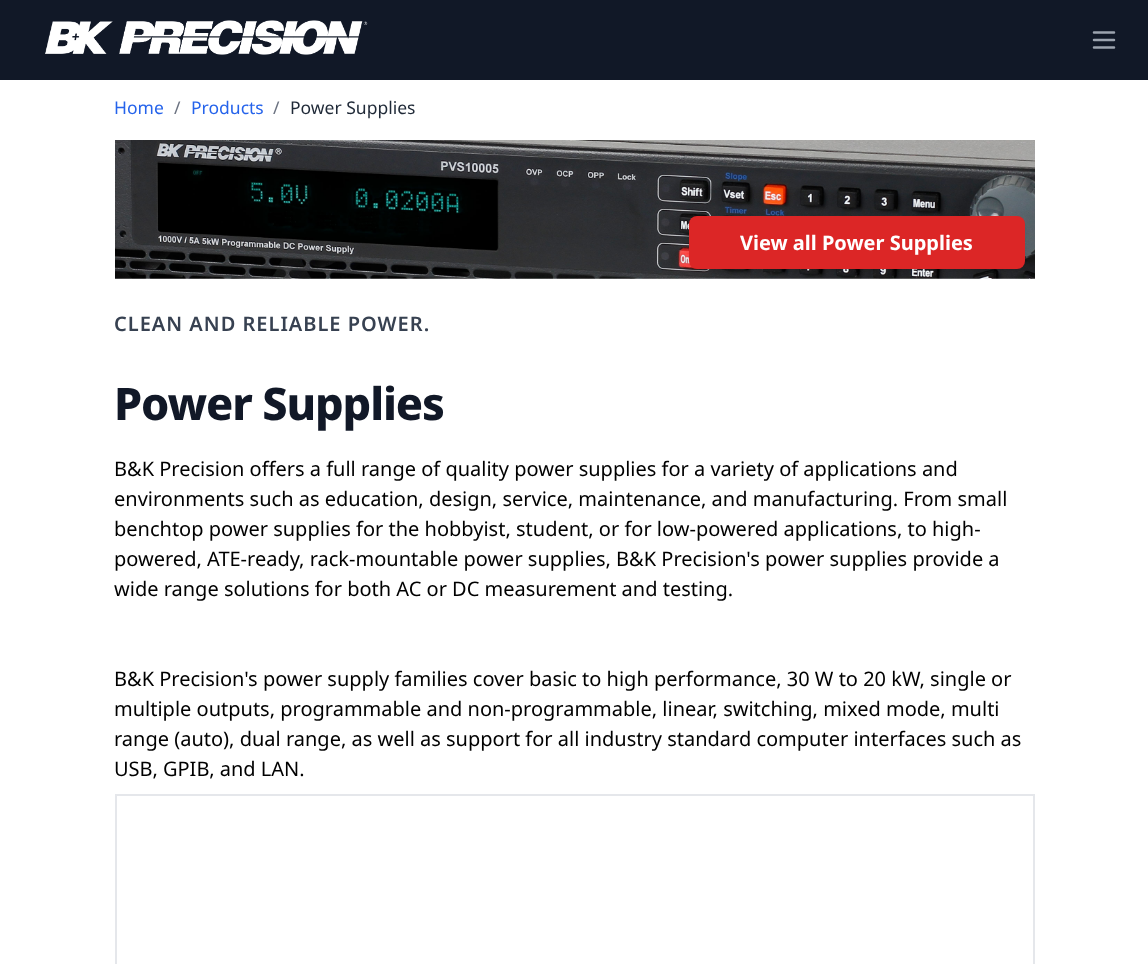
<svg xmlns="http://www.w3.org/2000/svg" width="1148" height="964">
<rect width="100%" height="100%" fill="#fff"/>
<rect width="1148" height="80" fill="#111827"/>
<image x="45" y="20" width="323" height="35" href="media/1.png"/>
<path d="M1094 32.5h20m-20 7.5h20m-20 7.5h20" fill="none" stroke="#9ca3af" stroke-width="2.5" stroke-linecap="round" stroke-linejoin="round"/>
<text x="114" y="114" style="font-family:Noto Sans;font-size:17.5px;fill:#2563eb">Home</text>
<text x="174" y="114" style="font-family:Noto Sans;font-size:17.5px;fill:#6b7280">/</text>
<text x="191" y="114" style="font-family:Noto Sans;font-size:17.5px;fill:#2563eb">Products</text>
<text x="273" y="114" style="font-family:Noto Sans;font-size:17.5px;fill:#6b7280">/</text>
<text x="290" y="114" style="font-family:Noto Sans;font-size:17.5px;fill:#1f2937">Power Supplies</text>
<image x="115" y="140" width="920" height="139" href="media/2.png"/>
<rect x="689" y="218" width="336" height="52" rx="8" fill="#0000000d" filter="blur(1px)"/>
<rect x="689" y="216" width="336" height="53" rx="8" fill="#dc2626"/>
<text x="740" y="250" style="font-family:Noto Sans;font-size:20px;font-weight:bold;fill:#fff">View all Power Supplies</text>
<text x="114" y="331" style="font-family:Noto Sans;font-size:20px;font-weight:600;letter-spacing:1px;fill:#374151">CLEAN AND RELIABLE POWER.</text>
<text x="114" y="420" style="font-family:Noto Sans;font-size:45px;font-weight:800;letter-spacing:-1.1px;fill:#111827">Power Supplies</text>
<text x="114" y="476" style="font-family:Noto Sans;font-size:20px;fill:#000">B&amp;K Precision offers a full range of quality power supplies for a variety of applications and</text>
<text x="114" y="506" style="font-family:Noto Sans;font-size:20px;fill:#000">environments such as education, design, service, maintenance, and manufacturing. From small</text>
<text x="114" y="536" style="font-family:Noto Sans;font-size:20px;fill:#000">benchtop power supplies for the hobbyist, student, or for low-powered applications, to high-</text>
<text x="114" y="566" style="font-family:Noto Sans;font-size:20px;fill:#000">powered, ATE-ready, rack-mountable power supplies, B&amp;K Precision's power supplies provide a</text>
<text x="114" y="596" style="font-family:Noto Sans;font-size:20px;fill:#000">wide range solutions for both AC or DC measurement and testing.</text>
<text x="114" y="686" style="font-family:Noto Sans;font-size:20px;fill:#000">B&amp;K Precision's power supply families cover basic to high performance, 30 W to 20 kW, single or</text>
<text x="114" y="716" style="font-family:Noto Sans;font-size:20px;fill:#000">multiple outputs, programmable and non-programmable, linear, switching, mixed mode, multi</text>
<text x="114" y="746" style="font-family:Noto Sans;font-size:20px;fill:#000">range (auto), dual range, as well as support for all industry standard computer interfaces such as</text>
<text x="114" y="776" style="font-family:Noto Sans;font-size:20px;fill:#000">USB, GPIB, and LAN.</text>
<rect x="116.5" y="795.5" width="917" height="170" fill="none" stroke="#e5e7eb" stroke-width="3"/>
<rect x="117" y="796" width="916" height="168" fill="#fff"/>
</svg>
